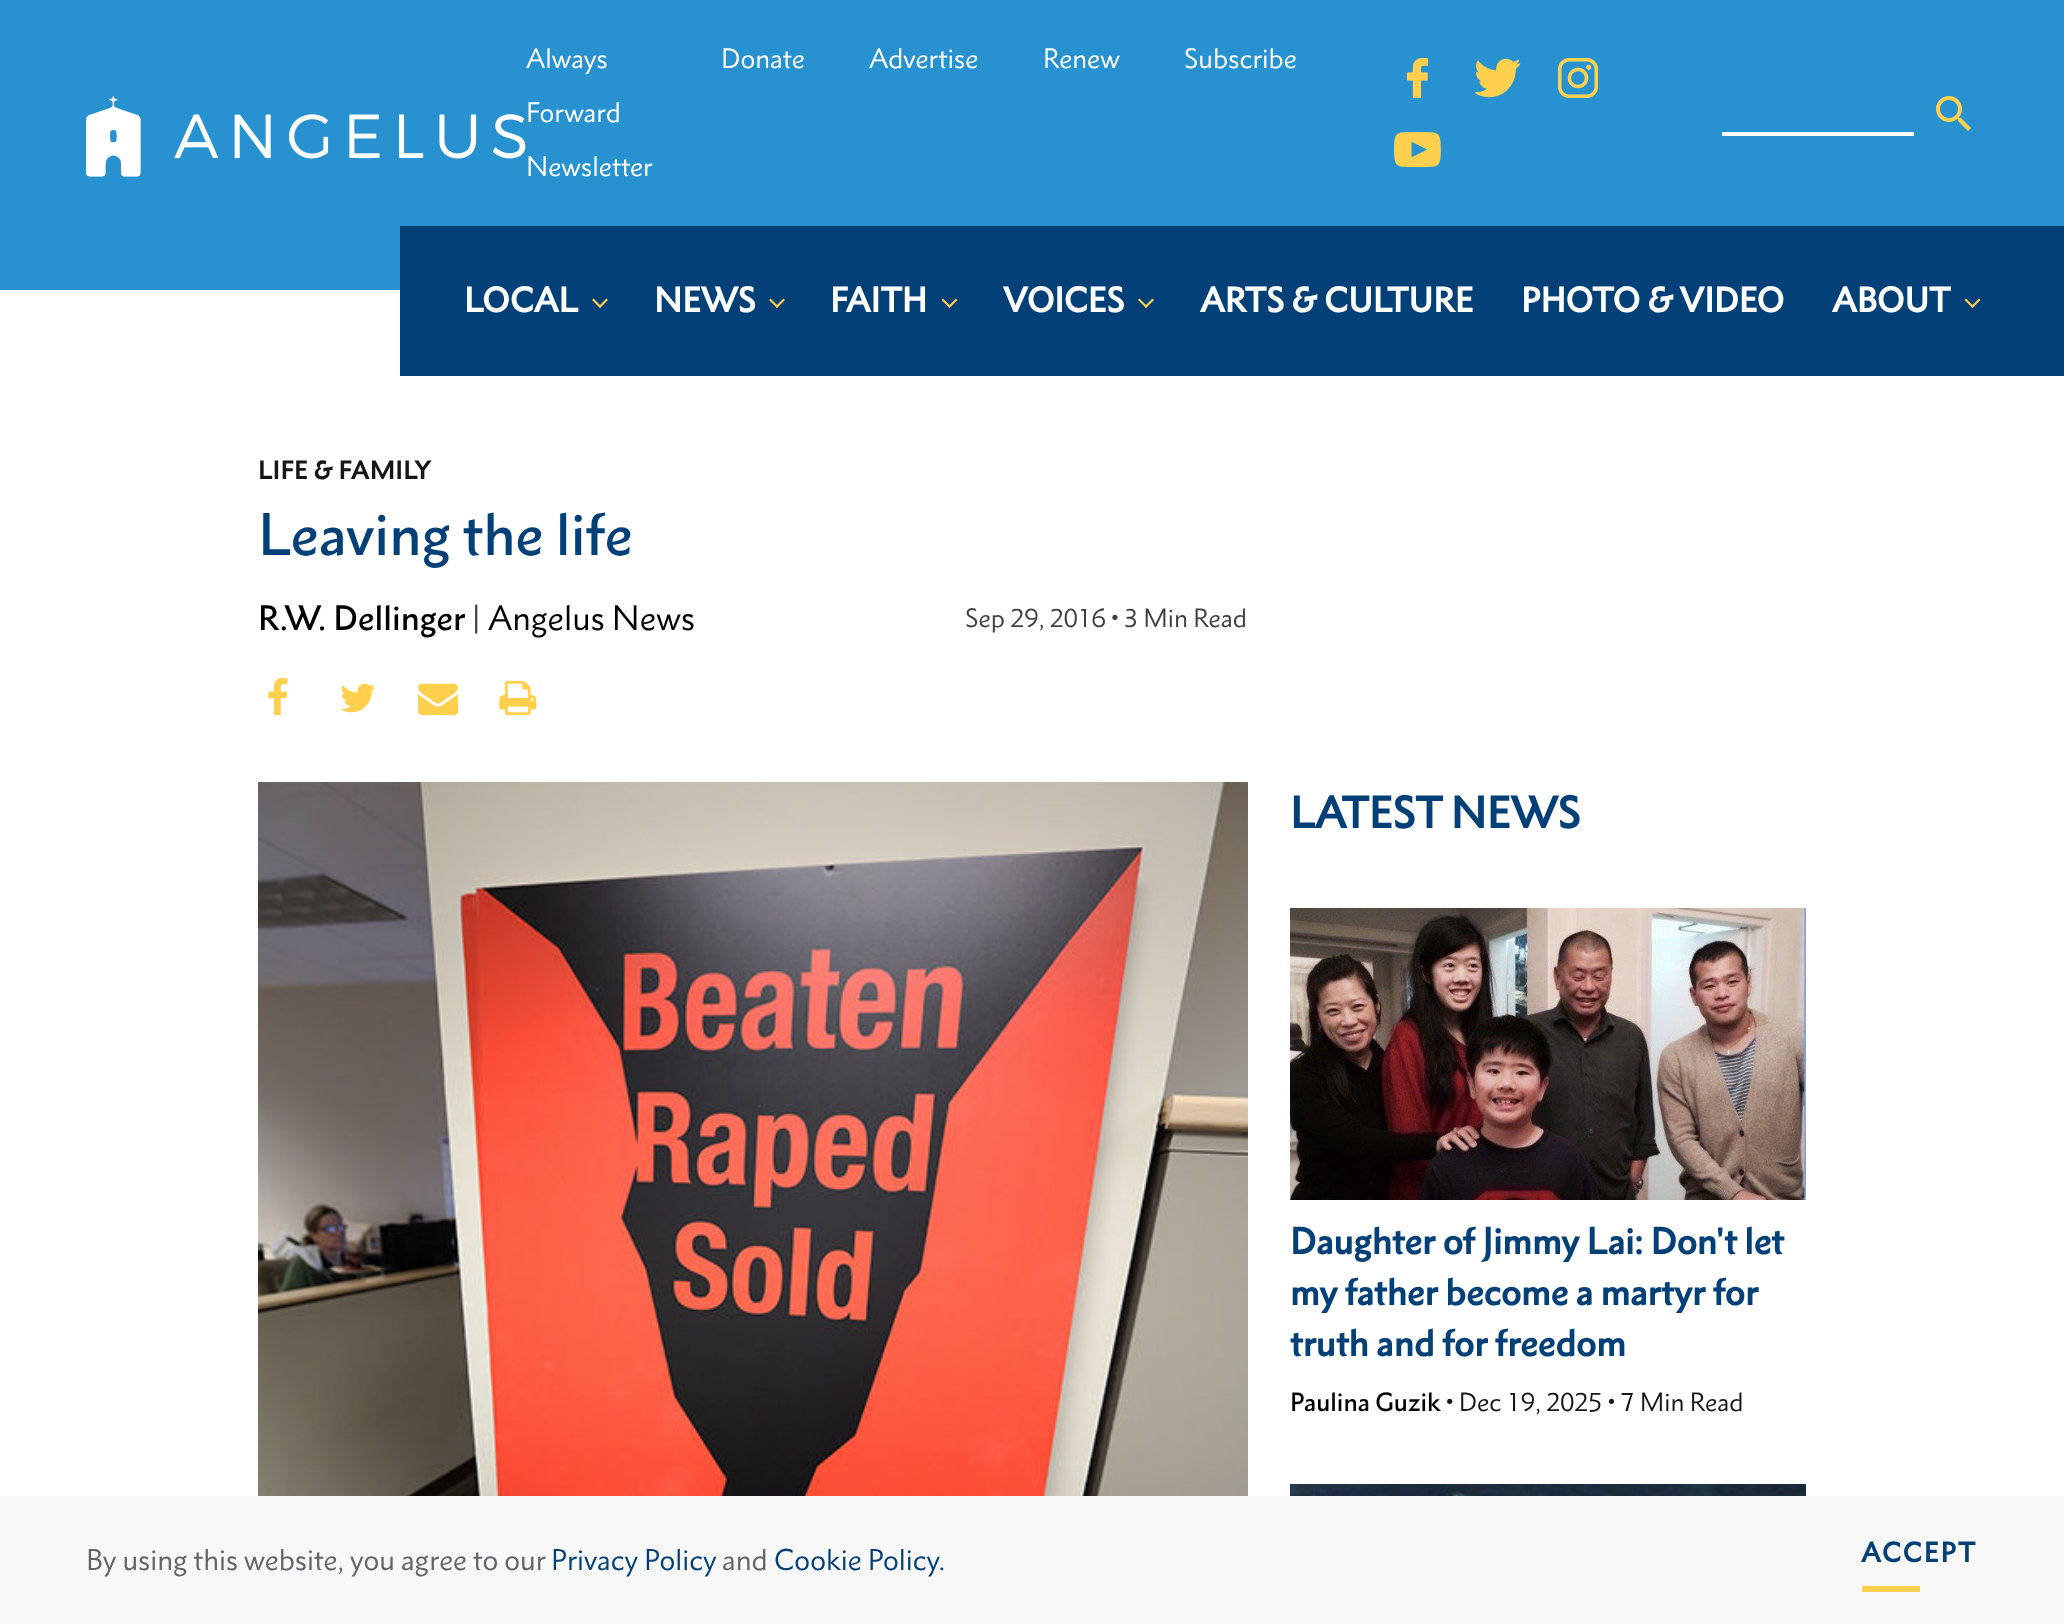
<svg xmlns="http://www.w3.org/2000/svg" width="2064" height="1624">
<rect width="100%" height="100%" fill="#fff"/>
<rect width="2064" height="290" fill="#2792cf"/>
<image x="86" y="96" width="440" height="81" href="media/1.png"/>
<text x="526" y="68" style="font-family:'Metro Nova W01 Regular';font-size:25.5px;fill:#fff">Always</text>
<text x="526" y="122" style="font-family:'Metro Nova W01 Regular';font-size:25.5px;fill:#fff">Forward</text>
<text x="526" y="176" style="font-family:'Metro Nova W01 Regular';font-size:25.5px;fill:#fff">Newsletter</text>
<text x="721" y="68" style="font-family:'Metro Nova W01 Regular';font-size:25.5px;fill:#fff">Donate</text>
<text x="869" y="68" style="font-family:'Metro Nova W01 Regular';font-size:25.5px;fill:#fff">Advertise</text>
<text x="1043" y="68" style="font-family:'Metro Nova W01 Regular';font-size:25.5px;fill:#fff">Renew</text>
<text x="1184" y="68" style="font-family:'Metro Nova W01 Regular';font-size:25.5px;fill:#fff">Subscribe</text>
<image x="1407" y="58" width="21" height="40" href="media/2.png"/>
<image x="1475" y="58" width="46" height="40" href="media/3.png"/>
<image x="1558" y="58" width="40" height="40" href="media/4.png"/>
<image x="1394" y="132" width="47" height="36" href="media/5.png"/>
<image x="1936" y="96" width="35" height="35" href="media/6.png"/>
<rect x="1722" y="132" width="192" height="4" fill="#fff"/>
<rect x="400" y="226" width="1664" height="150" fill="#034078"/>
<text x="464" y="312" style="font-family:'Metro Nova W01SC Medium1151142';font-size:32px;font-weight:bold;fill:#fff">LOCAL</text>
<path d="M608 300l-8 8l-1.5-1.5l8-8z" fill="#ffd04e"/>
<path d="M601.5 306.5l-1.5 1.5l-8-8l1.5-1.5z" fill="#ffd04e"/>
<text x="654" y="312" style="font-family:'Metro Nova W01SC Medium1151142';font-size:32px;font-weight:bold;fill:#fff">NEWS</text>
<path d="M785 300l-8 8l-1.5-1.5l8-8z" fill="#ffd04e"/>
<path d="M778.5 306.5l-1.5 1.5l-8-8l1.5-1.5z" fill="#ffd04e"/>
<text x="830" y="312" style="font-family:'Metro Nova W01SC Medium1151142';font-size:32px;font-weight:bold;fill:#fff">FAITH</text>
<path d="M957.5 300l-8 8l-1.5-1.5l8-8z" fill="#ffd04e"/>
<path d="M951 306.5l-1.5 1.5l-8-8l1.5-1.5z" fill="#ffd04e"/>
<text x="1003" y="312" style="font-family:'Metro Nova W01SC Medium1151142';font-size:32px;font-weight:bold;fill:#fff">VOICES</text>
<path d="M1154 300l-8 8l-1.5-1.5l8-8z" fill="#ffd04e"/>
<path d="M1147.5 306.5l-1.5 1.5l-8-8l1.5-1.5z" fill="#ffd04e"/>
<text x="1200" y="312" style="font-family:'Metro Nova W01SC Medium1151142';font-size:32px;font-weight:bold;fill:#fff">ARTS &amp; CULTURE</text>
<text x="1521" y="312" style="font-family:'Metro Nova W01SC Medium1151142';font-size:32px;font-weight:bold;fill:#fff">PHOTO &amp; VIDEO</text>
<text x="1832" y="312" style="font-family:'Metro Nova W01SC Medium1151142';font-size:32px;font-weight:bold;fill:#fff">ABOUT</text>
<path d="M1980.5 300l-8 8l-1.5-1.5l8-8z" fill="#ffd04e"/>
<path d="M1974 306.5l-1.5 1.5l-8-8l1.5-1.5z" fill="#ffd04e"/>
<text x="258" y="479" style="font-family:'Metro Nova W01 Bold';font-size:24px;font-weight:bold;fill:#161616">LIFE &amp; FAMILY</text>
<text x="258" y="555" style="font-family:'Metro Nova W01SC Medium1151142';font-size:54.5px;font-weight:500;fill:#034078">Leaving the life</text>
<text x="258" y="630" style="font-family:'Metro Nova W01SC Medium1151142';font-size:32px;font-weight:500;fill:#000">R.W. Dellinger</text>
<text x="472" y="630" style="font-family:'Metro Nova W01 Regular';font-size:32px;fill:#404040">|</text>
<text x="488" y="630" style="font-family:'Metro Nova W01 Regular';font-size:32px;fill:#000">Angelus News</text>
<text x="965" y="627" style="font-family:'Metro Nova W01 Regular';font-size:24px;fill:#404040">Sep 29, 2016 • 3 Min Read</text>
<image x="268" y="678" width="20" height="38" href="media/7.png"/>
<image x="340" y="683" width="36" height="30" href="media/8.png"/>
<image x="418" y="683" width="40" height="33" href="media/9.png"/>
<image x="499" y="680" width="38" height="36" href="media/10.png"/>
<image x="258" y="782" width="990" height="714" href="media/11.png"/>
<text x="1290" y="828" style="font-family:'Metro Nova W01SC Medium1151142';font-size:40.75px;font-weight:bold;fill:#034078">LATEST NEWS</text>
<image x="1290" y="908" width="516" height="292" href="media/12.png"/>
<text x="1290" y="1254" style="font-family:'Metro Nova W01SC Medium1151142';font-size:34px;font-weight:bold;fill:#034078">Daughter of Jimmy Lai: Don't let</text>
<text x="1290" y="1305" style="font-family:'Metro Nova W01SC Medium1151142';font-size:34px;font-weight:bold;fill:#034078">my father become a martyr for</text>
<text x="1290" y="1356" style="font-family:'Metro Nova W01SC Medium1151142';font-size:34px;font-weight:bold;fill:#034078">truth and for freedom</text>
<text x="1290" y="1411" style="font-family:'Metro Nova W01SC Medium1151142';font-size:24px;font-weight:500;fill:#000">Paulina Guzik</text>
<text x="1446" y="1411" style="font-family:'Metro Nova W01 Regular';font-size:24px;fill:#161616">• Dec 19, 2025 • 7 Min Read</text>
<image x="1290" y="1484" width="516" height="12" href="media/13.png"/>
<rect y="1496" width="2064" height="128" fill="#f8f8f8"/>
<text x="86" y="1570" style="font-family:'Metro Nova W01 Regular';font-size:27.25px;fill:#636267">By using this website, you agree to our</text>
<text x="551" y="1570" style="font-family:'Metro Nova W01 Regular';font-size:27.25px;fill:#034078">Privacy Policy</text>
<text x="722" y="1570" style="font-family:'Metro Nova W01 Regular';font-size:27.25px;fill:#636267">and</text>
<text x="774" y="1570" style="font-family:'Metro Nova W01 Regular';font-size:27.25px;fill:#034078">Cookie Policy.</text>
<text x="1861" y="1562" style="font-family:'Metro Nova W01SC Medium1151142';font-size:25.5px;font-weight:bold;letter-spacing:2px;fill:#034078">ACCEPT</text>
<rect x="1862" y="1586" width="58" height="6" fill="#ffd04e"/>
</svg>
